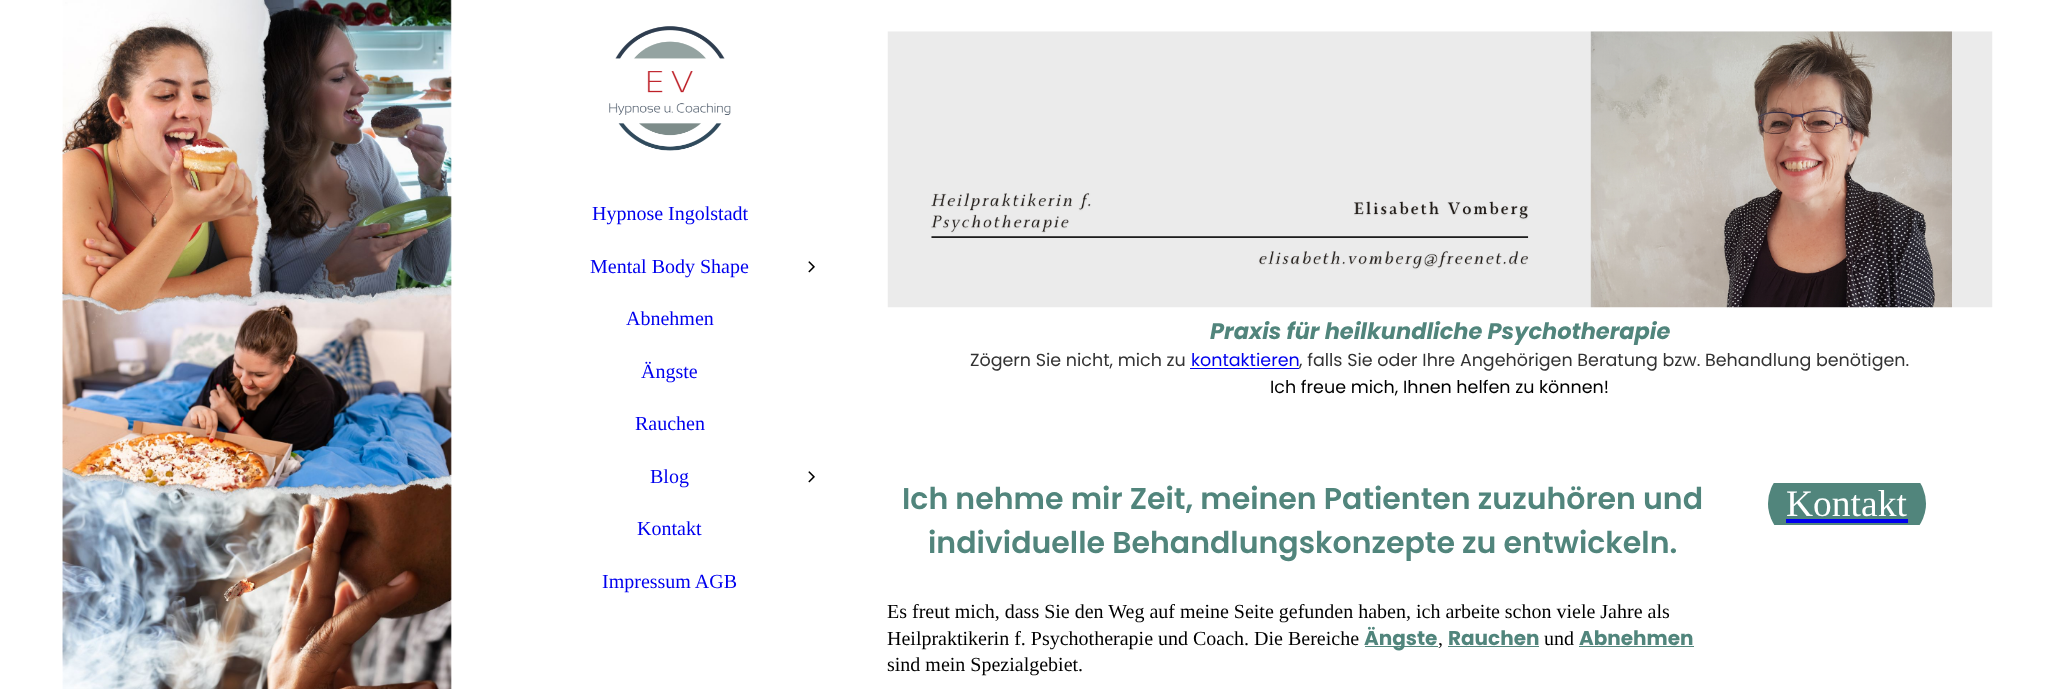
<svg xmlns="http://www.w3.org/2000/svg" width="2053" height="689">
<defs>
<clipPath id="clip1"><rect x="1768" y="483" width="200" height="42"/></clipPath>
</defs>
<rect width="100%" height="100%" fill="#fff"/>
<image x="62" y="0" width="390" height="689" href="media/1.png"/>
<image x="609" y="26" width="122" height="125" href="media/2.png"/>
<text x="592" y="220" style="font-family:Liberation Serif;font-size:20px;fill:#00e">Hypnose Ingolstadt</text>
<text x="590" y="273" style="font-family:Liberation Serif;font-size:20px;fill:#00e">Mental Body Shape</text>
<image x="808" y="261" width="7" height="12" href="media/3.png"/>
<text x="626" y="325" style="font-family:Liberation Serif;font-size:20px;fill:#00e">Abnehmen</text>
<text x="641" y="378" style="font-family:Liberation Serif;font-size:20px;fill:#00e">Ängste</text>
<text x="635" y="430" style="font-family:Liberation Serif;font-size:20px;fill:#00e">Rauchen</text>
<text x="650" y="483" style="font-family:Liberation Serif;font-size:20px;fill:#00e">Blog</text>
<image x="808" y="471" width="7" height="12" href="media/3.png"/>
<text x="637" y="535" style="font-family:Liberation Serif;font-size:20px;fill:#00e">Kontakt</text>
<text x="602" y="588" style="font-family:Liberation Serif;font-size:20px;fill:#00e">Impressum AGB</text>
<image x="887" y="31" width="1106" height="277" href="media/4.png"/>
<text x="1210" y="339" style="font-family:Poppins;font-size:22.5px;font-weight:bold;font-style:italic;fill:#51857c">Praxis für heilkundliche Psychotherapie</text>
<text x="970" y="366" style="font-family:Poppins;font-size:17.5px;fill:#333">Zögern Sie nicht, mich zu</text>
<text x="1191" y="366" style="font-family:Poppins;font-size:17.5px;fill:#00e">kontaktieren</text>
<text x="1299" y="366" style="font-family:Poppins;font-size:17.5px;fill:#333">, falls Sie oder Ihre Angehörigen Beratung bzw. Behandlung benötigen.</text>
<rect x="1190" y="368" width="109" height="1" fill="#00e"/>
<text x="1270" y="393" style="font-family:Poppins;font-size:17.5px;fill:#000">Ich freue mich, Ihnen helfen zu können!</text>
<text x="902" y="509" style="font-family:Poppins;font-size:30px;font-weight:600;fill:#51857c">Ich nehme mir Zeit, meinen Patienten zuzuhören und</text>
<text x="928" y="553" style="font-family:Poppins;font-size:30px;font-weight:600;fill:#51857c">individuelle Behandlungskonzepte zu entwickeln.</text>
<text x="887" y="618" style="font-family:Liberation Serif;font-size:20px;fill:#000">Es freut mich, dass Sie den Weg auf meine Seite gefunden haben, ich arbeite schon viele Jahre als</text>
<text x="887" y="645" style="font-family:Liberation Serif;font-size:20px;fill:#000">Heilpraktikerin f. Psychotherapie und Coach. Die Bereiche</text>
<rect x="1365" y="646" width="73" height="1" fill="#51857c"/>
<text x="1364" y="645" style="font-family:Poppins;font-size:20px;font-weight:bold;fill:#51857c">Ängste</text>
<text x="1438" y="645" style="font-family:Liberation Serif;font-size:20px;fill:#000">,</text>
<text x="1448" y="645" style="font-family:Poppins;font-size:20px;font-weight:bold;fill:#51857c">Rauchen</text>
<rect x="1448" y="646" width="91" height="1" fill="#51857c"/>
<text x="1544" y="645" style="font-family:Liberation Serif;font-size:20px;fill:#000">und</text>
<text x="1579" y="645" style="font-family:Poppins;font-size:20px;font-weight:bold;fill:#51857c">Abnehmen</text>
<rect x="1579" y="646" width="115" height="1" fill="#51857c"/>
<text x="887" y="671" style="font-family:Liberation Serif;font-size:20px;fill:#000">sind mein Spezialgebiet.</text>
<g clip-path="url(#clip1)">
<rect x="1768" y="464" width="158" height="79" rx="39.5" fill="#51857c"/>
</g>
<text x="1786" y="516" style="font-family:Liberation Serif;font-size:37.5px;fill:#fff">Kontakt</text>
<rect x="1786" y="519" width="122" height="4" fill="#00e"/>
</svg>
